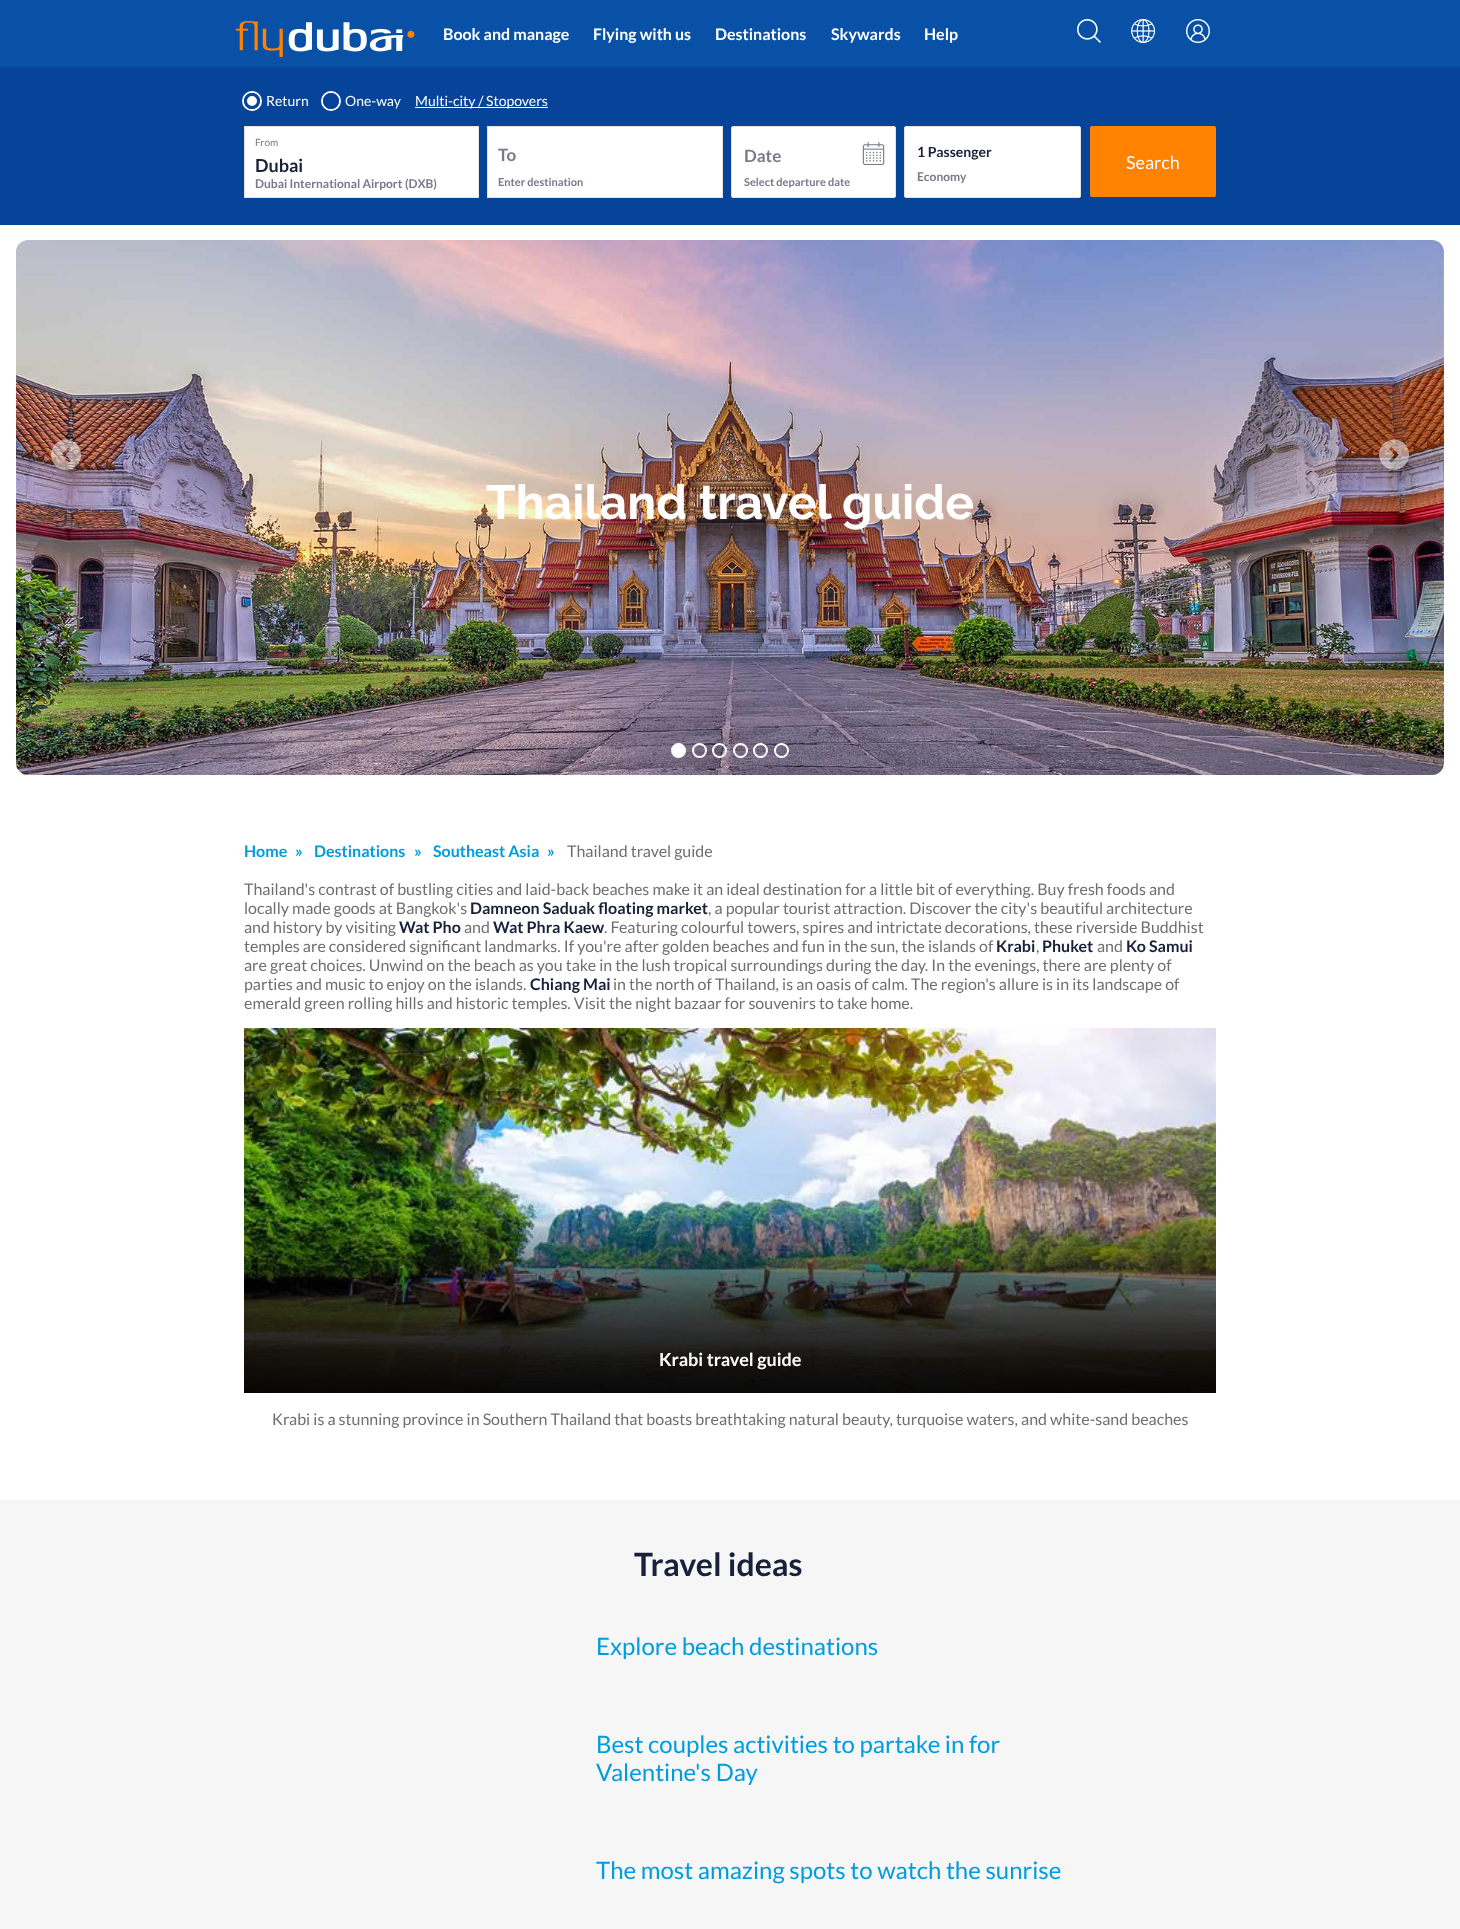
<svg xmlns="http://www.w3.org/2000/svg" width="1460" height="1929">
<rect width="100%" height="100%" fill="#fff"/>
<rect width="1460" height="67" fill="#0851a7"/>
<image x="235" y="21" width="180" height="36" href="media/1.png"/>
<text x="443" y="40" style="font-family:Lato;font-size:16px;font-weight:bold;fill:#fff">Book and manage</text>
<text x="593" y="40" style="font-family:Lato;font-size:16px;font-weight:bold;fill:#fff">Flying with us</text>
<text x="715" y="40" style="font-family:Lato;font-size:16px;font-weight:bold;fill:#fff">Destinations</text>
<text x="831" y="40" style="font-family:Lato;font-size:16px;font-weight:bold;fill:#fff">Skywards</text>
<text x="924" y="40" style="font-family:Lato;font-size:16px;font-weight:bold;fill:#fff">Help</text>
<image x="1077" y="19" width="24" height="24" href="media/2.png"/>
<image x="1131" y="19" width="24" height="24" href="media/3.png"/>
<image x="1186" y="19" width="24" height="24" href="media/4.png"/>
<rect y="67" width="1460" height="158" fill="#06449a"/>
<circle cx="252" cy="101" r="9" fill="none" stroke="#fff" stroke-width="2"/>
<circle cx="252" cy="101" r="6.5" fill="#fff" stroke="#06449a" stroke-width="3"/>
<text x="266" y="106" style="font-family:Lato;font-size:14px;fill:#fff">Return</text>
<circle cx="331" cy="101" r="9" fill="none" stroke="#fff" stroke-width="2"/>
<circle cx="331" cy="101" r="6.5" fill="none" stroke="#06449a" stroke-width="3"/>
<text x="345" y="106" style="font-family:Lato;font-size:14px;fill:#fff">One-way</text>
<rect x="415" y="107" width="133" height="1" fill="#fff"/>
<text x="415" y="106" style="font-family:Lato;font-size:14px;fill:#fff">Multi-city / Stopovers</text>
<rect x="244.5" y="126.5" width="234" height="71" fill="#fff" stroke="#e6e2e2"/>
<text x="255" y="146" style="font-family:Lato;font-size:10px;fill:#767a89">From</text>
<text x="255" y="172" style="font-family:Lato;font-size:18px;font-weight:bold;fill:#19213a">Dubai</text>
<text x="255" y="188" style="font-family:Lato;font-size:12px;font-weight:bold;fill:#767a89">Dubai International Airport</text>
<text x="405" y="188" style="font-family:Lato;font-size:12px;font-weight:bold;fill:#767a89">(DXB)</text>
<rect x="487.5" y="126.5" width="235" height="71" fill="#fff" stroke="#e6e2e2"/>
<text x="498" y="161" style="font-family:Lato;font-size:17px;font-weight:bold;fill:#767a89">To</text>
<text x="498" y="186" style="font-family:Lato;font-size:11px;font-weight:bold;fill:#767a89">Enter destination</text>
<rect x="731.5" y="126.5" width="164" height="71" rx="1.5" fill="#fff" stroke="#e6e2e2"/>
<text x="744" y="162" style="font-family:Lato;font-size:17px;font-weight:bold;fill:#767a89">Date</text>
<image x="862" y="142" width="23" height="23" href="media/5.png"/>
<text x="744" y="186" style="font-family:Lato;font-size:11px;font-weight:bold;fill:#767a89">Select departure date</text>
<rect x="904.5" y="126.5" width="176" height="71" rx="1.5" fill="#fff" stroke="#e6e2e2"/>
<text x="917" y="157" style="font-family:Lato;font-size:14px;font-weight:bold;fill:#19213a">1 Passenger</text>
<text x="917" y="181" style="font-family:Lato;font-size:12px;font-weight:bold;fill:#767a89">Economy</text>
<rect x="1090" y="126" width="126" height="71" rx="2" fill="#ff8200"/>
<text x="1126" y="169" style="font-family:Lato;font-size:18px;fill:#fff">Search</text>
<image x="16" y="240" width="1428" height="535" href="media/8.png"/>
<image x="51" y="439" width="30" height="31" href="media/6.png"/>
<image x="1379" y="439" width="30" height="31" href="media/7.png"/>
<text x="486" y="519" style="font-family:Raleway;font-size:48px;font-weight:100;fill:#fff">Thailand travel guide</text>
<circle cx="678.5" cy="750.5" r="6.5" fill="#fff" stroke="#fff" stroke-width="2"/>
<circle cx="699.5" cy="750.5" r="6.5" fill="none" stroke="#fff" stroke-width="2"/>
<circle cx="719.5" cy="750.5" r="6.5" fill="none" stroke="#fff" stroke-width="2"/>
<circle cx="740.5" cy="750.5" r="6.5" fill="none" stroke="#fff" stroke-width="2"/>
<circle cx="760.5" cy="750.5" r="6.5" fill="none" stroke="#fff" stroke-width="2"/>
<circle cx="781.5" cy="750.5" r="6.5" fill="none" stroke="#fff" stroke-width="2"/>
<text x="244" y="857" style="font-family:Lato;font-size:16px;font-weight:bold;fill:#009cde">Home</text>
<text x="295" y="857" style="font-family:Lato;font-size:16px;font-weight:bold;fill:#009cde">»</text>
<text x="314" y="857" style="font-family:Lato;font-size:16px;font-weight:bold;fill:#009cde">Destinations</text>
<text x="414" y="857" style="font-family:Lato;font-size:16px;font-weight:bold;fill:#009cde">»</text>
<text x="433" y="857" style="font-family:Lato;font-size:16px;font-weight:bold;fill:#009cde">Southeast Asia</text>
<text x="547" y="857" style="font-family:Lato;font-size:16px;font-weight:bold;fill:#009cde">»</text>
<text x="567" y="857" style="font-family:Lato;font-size:16px;fill:#6f6f6f">Thailand travel guide</text>
<text x="244" y="895" style="font-family:Lato;font-size:16px;fill:#6f6f6f">Thailand's contrast of bustling cities and laid-back beaches make it an ideal destination for a little bit of everything. Buy fresh foods and</text>
<text x="244" y="914" style="font-family:Lato;font-size:16px;fill:#6f6f6f">locally made goods at Bangkok's</text>
<text x="470" y="914" style="font-family:Lato;font-size:16px;font-weight:bold;fill:#19213a">Damneon Saduak floating market</text>
<text x="708" y="914" style="font-family:Lato;font-size:16px;fill:#6f6f6f">, a popular tourist attraction. Discover the city's beautiful architecture</text>
<text x="244" y="933" style="font-family:Lato;font-size:16px;fill:#6f6f6f">and history by visiting</text>
<text x="399" y="933" style="font-family:Lato;font-size:16px;font-weight:bold;fill:#19213a">Wat Pho</text>
<text x="464" y="933" style="font-family:Lato;font-size:16px;fill:#6f6f6f">and</text>
<text x="493" y="933" style="font-family:Lato;font-size:16px;font-weight:bold;fill:#19213a">Wat Phra Kaew</text>
<text x="604" y="933" style="font-family:Lato;font-size:16px;fill:#6f6f6f">. Featuring colourful towers, spires and intrictate decorations, these riverside Buddhist</text>
<text x="244" y="952" style="font-family:Lato;font-size:16px;fill:#6f6f6f">temples are considered significant landmarks. If you're after golden beaches and fun in the sun, the islands of</text>
<text x="996" y="952" style="font-family:Lato;font-size:16px;font-weight:bold;fill:#19213a">Krabi</text>
<text x="1036" y="952" style="font-family:Lato;font-size:16px;fill:#6f6f6f">,</text>
<text x="1042" y="952" style="font-family:Lato;font-size:16px;font-weight:bold;fill:#19213a">Phuket</text>
<text x="1097" y="952" style="font-family:Lato;font-size:16px;fill:#6f6f6f">and</text>
<text x="1126" y="952" style="font-family:Lato;font-size:16px;font-weight:bold;fill:#19213a">Ko Samui</text>
<text x="244" y="971" style="font-family:Lato;font-size:16px;fill:#6f6f6f">are great choices. Unwind on the beach as you take in the lush tropical surroundings during the day. In the evenings, there are plenty of</text>
<text x="244" y="990" style="font-family:Lato;font-size:16px;fill:#6f6f6f">parties and music to enjoy on the islands.</text>
<text x="530" y="990" style="font-family:Lato;font-size:16px;font-weight:bold;fill:#19213a">Chiang Mai</text>
<text x="613" y="990" style="font-family:Lato;font-size:16px;fill:#6f6f6f">in the north of Thailand, is an oasis of calm. The region's allure is in its landscape of</text>
<text x="244" y="1009" style="font-family:Lato;font-size:16px;fill:#6f6f6f">emerald green rolling hills and historic temples. Visit the night bazaar for souvenirs to take home.</text>
<image x="244" y="1028" width="972" height="365" href="media/9.png"/>
<text x="659" y="1366" style="font-family:Lato;font-size:18px;font-weight:bold;fill:#fff">Krabi travel guide</text>
<text x="272" y="1425" style="font-family:Lato;font-size:16px;fill:#6f6f6f">Krabi is a stunning province in Southern Thailand that boasts breathtaking natural beauty, turquoise waters, and white-sand beaches</text>
<rect y="1500" width="1460" height="429" fill="#f6f6f6"/>
<text x="634" y="1576" style="font-family:Lato;font-size:32px;font-weight:bold;fill:#19213a">Travel ideas</text>
<text x="596" y="1655" style="font-family:Lato;font-size:24px;fill:#009cde">Explore beach destinations</text>
<text x="596" y="1753" style="font-family:Lato;font-size:24px;fill:#009cde">Best couples activities to partake in for</text>
<text x="596" y="1781" style="font-family:Lato;font-size:24px;fill:#009cde">Valentine's Day</text>
<text x="596" y="1879" style="font-family:Lato;font-size:24px;fill:#009cde">The most amazing spots to watch the sunrise</text>
</svg>
